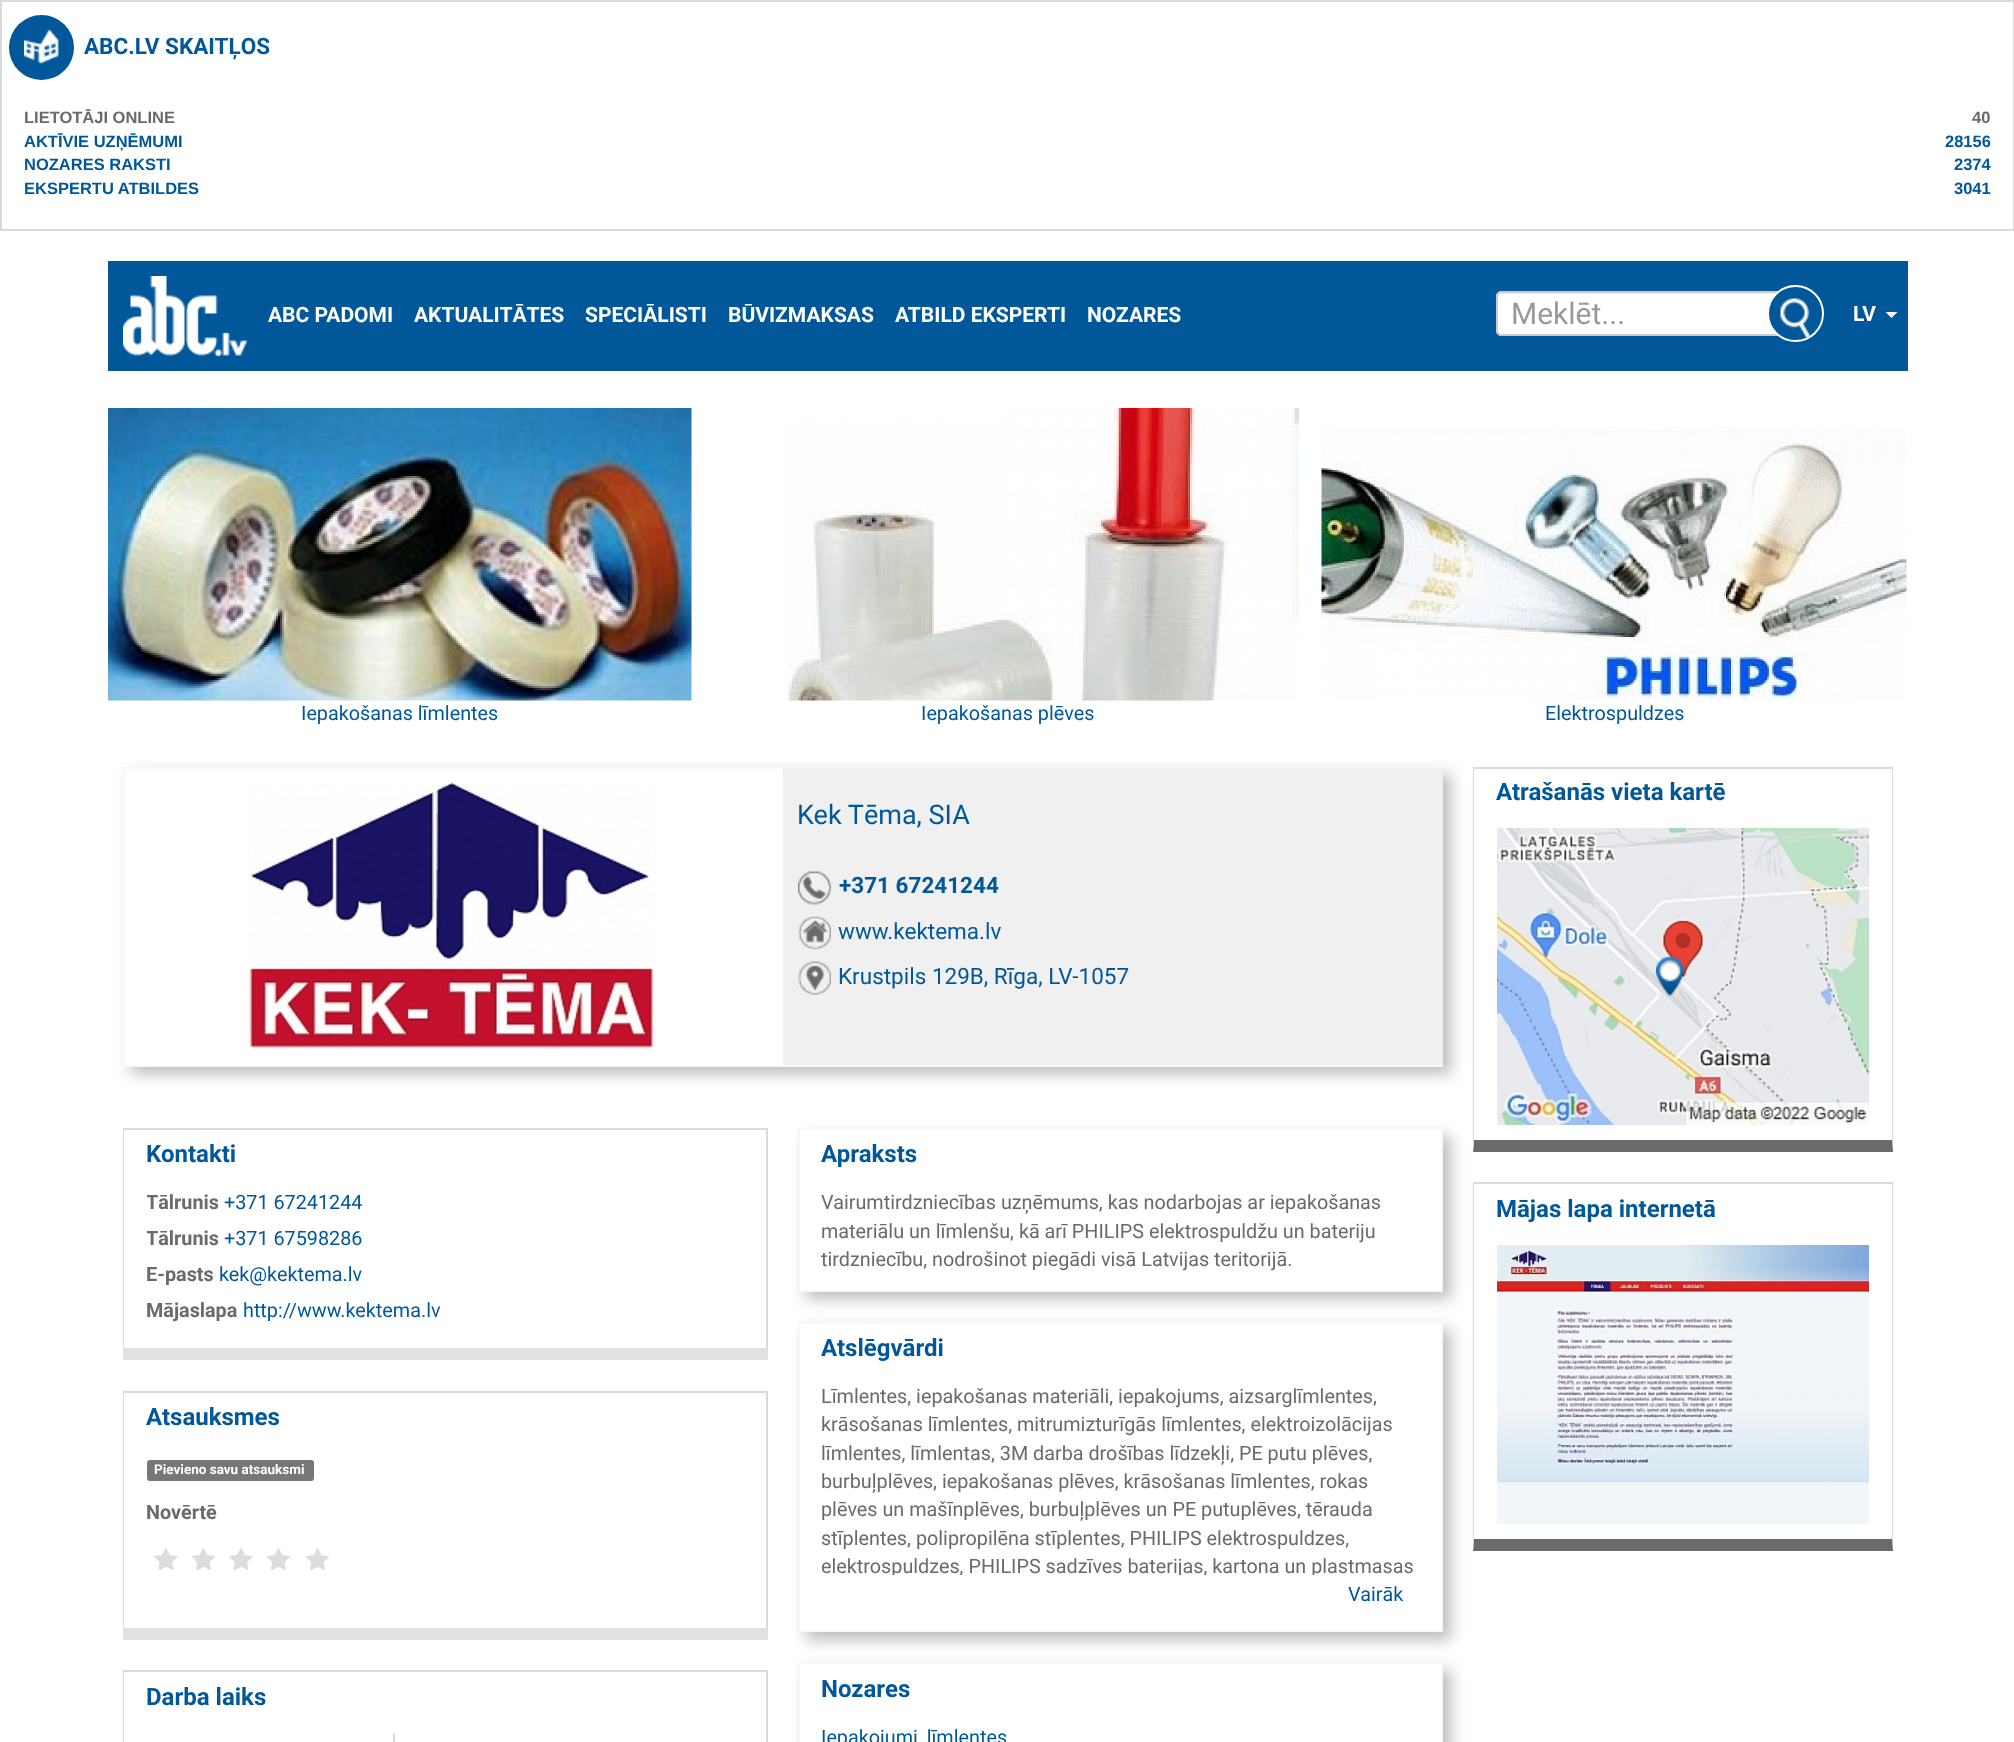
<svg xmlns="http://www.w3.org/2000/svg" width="2014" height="1742">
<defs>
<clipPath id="clip1"><path d="M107 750h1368v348h-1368zm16 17h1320v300h-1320z" clip-rule="evenodd"/></clipPath>
<clipPath id="clip2"><rect x="147" y="1190" width="597" height="36"/></clipPath>
<clipPath id="clip3"><rect x="147" y="1226" width="597" height="36"/></clipPath>
<clipPath id="clip4"><path d="M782 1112h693v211h-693zm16 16h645v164h-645z" clip-rule="evenodd"/></clipPath>
<clipPath id="clip5"><path d="M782 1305h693v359h-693zm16 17h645v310h-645z" clip-rule="evenodd"/></clipPath>
<clipPath id="clip6"><rect x="822" y="1383" width="597" height="192"/></clipPath>
<clipPath id="clip7"><path d="M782 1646h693v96h-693zm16 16h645v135h-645z" clip-rule="evenodd"/></clipPath>
</defs>
<rect width="100%" height="100%" fill="#fff"/>
<rect x="1" y="1" width="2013" height="229" fill="none" stroke="#dadada" stroke-width="2"/>
<circle cx="41.5" cy="47.5" r="32.5" fill="#00579a"/>
<image x="24" y="30" width="35" height="34" href="media/1.png"/>
<text x="84" y="54" style="font-family:Roboto;font-size:22.5px;font-weight:bold;fill:#00579a">ABC.LV SKAITĻOS</text>
<text x="24" y="123" style="font-family:Liberation Sans;font-size:16.5px;font-weight:bold;fill:#6a6a6a">LIETOTĀJI ONLINE</text>
<text x="1972" y="123" style="font-family:Liberation Sans;font-size:16.5px;font-weight:bold;fill:#6a6a6a">40</text>
<text x="24" y="147" style="font-family:Liberation Sans;font-size:16.5px;font-weight:bold;fill:#00579a">AKTĪVIE UZŅĒMUMI</text>
<text x="1945" y="147" style="font-family:Liberation Sans;font-size:16.5px;font-weight:bold;fill:#00579a">28156</text>
<text x="24" y="170" style="font-family:Liberation Sans;font-size:16.5px;font-weight:bold;fill:#00579a">NOZARES RAKSTI</text>
<text x="1954" y="170" style="font-family:Liberation Sans;font-size:16.5px;font-weight:bold;fill:#00579a">2374</text>
<text x="24" y="194" style="font-family:Liberation Sans;font-size:16.5px;font-weight:bold;fill:#00579a">EKSPERTU ATBILDES</text>
<text x="1954" y="194" style="font-family:Liberation Sans;font-size:16.5px;font-weight:bold;fill:#00579a">3041</text>
<rect x="108" y="261" width="1800" height="110" fill="#00579a"/>
<image x="123" y="276" width="125" height="81" href="media/2.png"/>
<path d="M1502 291h276v45h-276c-3.5 0-6-2.5-6-6v-33c0-3.5 2.5-6 6-6z" fill="#fff"/>
<path d="M1502 294h274v-1h-274c-3 0-5 2-5 5c0-2 2-4 5-4z" fill="#ececec"/>
<path d="M1502 292h275v43h-275c-3 0-5-2-5-5v-33c0-3 2-5 5-5z" fill="none" stroke="#ccc" stroke-width="2"/>
<text x="1511" y="324" style="font-family:Roboto;font-size:30px;fill:#999">Meklēt...</text>
<circle cx="1795.5" cy="313.5" r="27.5" fill="#00579a" stroke="#fff" stroke-width="2"/>
<image x="1780" y="298" width="31" height="40" href="media/3.png"/>
<text x="268" y="322" style="font-family:Roboto;font-size:21px;font-weight:bold;fill:#fff">ABC PADOMI</text>
<text x="414" y="322" style="font-family:Roboto;font-size:21px;font-weight:bold;fill:#fff">AKTUALITĀTES</text>
<text x="585" y="322" style="font-family:Roboto;font-size:21px;font-weight:bold;fill:#fff">SPECIĀLISTI</text>
<text x="728" y="322" style="font-family:Roboto;font-size:21px;font-weight:bold;fill:#fff">BŪVIZMAKSAS</text>
<text x="895" y="322" style="font-family:Roboto;font-size:21px;font-weight:bold;fill:#fff">ATBILD EKSPERTI</text>
<text x="1087" y="322" style="font-family:Roboto;font-size:21px;font-weight:bold;fill:#fff">NOZARES</text>
<text x="1853" y="321" style="font-family:Roboto;font-size:21px;font-weight:bold;fill:#fff">LV</text>
<path d="M1885.5 312h12l-6 6z" fill="#fff"/>
<image x="108" y="408" width="584" height="293" href="media/4.png"/>
<text x="301" y="720" style="font-family:Roboto;font-size:19.8px;fill:#00579a">Iepakošanas līmlentes</text>
<image x="785" y="408" width="514" height="293" href="media/5.png"/>
<text x="921" y="720" style="font-family:Roboto;font-size:19.8px;fill:#00579a">Iepakošanas plēves</text>
<image x="1321" y="426" width="586" height="275" href="media/6.png"/>
<text x="1545" y="720" style="font-family:Roboto;font-size:19.8px;fill:#00579a">Elektrospuldzes</text>
<g clip-path="url(#clip1)">
<rect x="131" y="774" width="1320" height="300" fill="#bcbcbc" filter="blur(7.5px)"/>
</g>
<rect x="124" y="768" width="1318" height="298" fill="none" stroke="#f8f8f8" stroke-width="2"/>
<image x="247" y="782" width="409" height="267" href="media/7.png"/>
<rect x="783" y="768" width="660" height="297" fill="#f0f0f0"/>
<text x="797" y="824" style="font-family:Roboto;font-size:27px;fill:#00579a">Kek Tēma, SIA</text>
<image x="798" y="871" width="33" height="34" href="media/8.png"/>
<text x="839" y="893" style="font-family:Roboto;font-size:22.5px;font-weight:bold;fill:#00579a">+371 67241244</text>
<image x="798" y="916" width="33" height="34" href="media/9.png"/>
<text x="838" y="939" style="font-family:Roboto;font-size:22.5px;fill:#00579a">www.kektema.lv</text>
<image x="798" y="961" width="33" height="34" href="media/10.png"/>
<text x="838" y="984" style="font-family:Roboto;font-size:22.5px;fill:#00579a">Krustpils 129B, Rīga, LV-1057</text>
<rect x="123" y="1128" width="645" height="2" fill="#dadada"/>
<path d="M768 1128v232l-2-12v-218z" fill="#dadada"/>
<path d="M768 1360h-645l1-12h642z" fill="#e1e1e1"/>
<path d="M123 1360v-232l1 2v218z" fill="#dadada"/>
<text x="146" y="1162" style="font-family:Roboto;font-size:24px;font-weight:bold;fill:#00579a">Kontakti</text>
<g clip-path="url(#clip2)">
<text x="146" y="1209" style="font-family:Roboto;font-size:19.8px;font-weight:bold;fill:#6a6a6a">Tālrunis</text>
</g>
<text x="224" y="1209" style="font-family:Roboto;font-size:19.8px;fill:#00579a">+371 67241244</text>
<g clip-path="url(#clip3)">
<text x="146" y="1245" style="font-family:Roboto;font-size:19.8px;font-weight:bold;fill:#6a6a6a">Tālrunis</text>
</g>
<text x="224" y="1245" style="font-family:Roboto;font-size:19.8px;fill:#00579a">+371 67598286</text>
<text x="146" y="1281" style="font-family:Roboto;font-size:19.8px;font-weight:bold;fill:#6a6a6a">E-pasts</text>
<text x="219" y="1281" style="font-family:Roboto;font-size:19.8px;fill:#00579a">kek@kektema.lv</text>
<text x="146" y="1317" style="font-family:Roboto;font-size:19.8px;font-weight:bold;fill:#6a6a6a">Mājaslapa</text>
<text x="243" y="1317" style="font-family:Roboto;font-size:19.8px;fill:#00579a">http://www.kektema.lv</text>
<rect x="123" y="1391" width="645" height="2" fill="#dadada"/>
<path d="M768 1390v250l-2-12v-236z" fill="#dadada"/>
<path d="M768 1640h-645l1-12h642z" fill="#e1e1e1"/>
<path d="M123 1640v-250l1 2v236z" fill="#dadada"/>
<text x="146" y="1425" style="font-family:Roboto;font-size:24px;font-weight:bold;fill:#00579a">Atsauksmes</text>
<rect x="147" y="1460" width="167" height="21" rx="3" fill="#777"/>
<text x="154" y="1474" style="font-family:Roboto;font-size:13.5px;font-weight:bold;fill:#fff">Pievieno savu atsauksmi</text>
<text x="146" y="1519" style="font-family:Roboto;font-size:19.8px;font-weight:bold;fill:#6a6a6a">Novērtē</text>
<image x="154" y="1548" width="24" height="22" href="media/11.png"/>
<image x="154" y="1548" width="12" height="22" href="media/12.png"/>
<image x="192" y="1548" width="23" height="22" href="media/13.png"/>
<image x="229" y="1548" width="24" height="22" href="media/11.png"/>
<image x="192" y="1549" width="11" height="21" href="media/14.png"/>
<image x="229" y="1548" width="12" height="22" href="media/12.png"/>
<image x="267" y="1548" width="23" height="22" href="media/13.png"/>
<image x="306" y="1548" width="23" height="22" href="media/13.png"/>
<image x="267" y="1549" width="11" height="21" href="media/14.png"/>
<image x="306" y="1549" width="11" height="21" href="media/14.png"/>
<rect x="123" y="1670" width="645" height="2" fill="#dadada"/>
<path d="M768 1670v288l-2-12v-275z" fill="#dadada"/>
<path d="M123 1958v-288l1 1v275z" fill="#dadada"/>
<text x="146" y="1705" style="font-family:Roboto;font-size:24px;font-weight:bold;fill:#00579a">Darba laiks</text>
<rect x="393" y="1733" width="2" height="9" fill="#dadada"/>
<g clip-path="url(#clip4)">
<rect x="806" y="1136" width="645" height="163" fill="#bcbcbc" filter="blur(7.5px)"/>
</g>
<rect x="799" y="1129" width="643" height="162" fill="none" stroke="#f8f8f8" stroke-width="2"/>
<text x="821" y="1162" style="font-family:Roboto;font-size:24px;font-weight:bold;fill:#00579a">Apraksts</text>
<text x="821" y="1209" style="font-family:Roboto;font-size:19.8px;fill:#6a6a6a">Vairumtirdzniecības uzņēmums, kas nodarbojas ar iepakošanas</text>
<text x="821" y="1238" style="font-family:Roboto;font-size:19.8px;fill:#6a6a6a">materiālu un līmlenšu, kā arī PHILIPS elektrospuldžu un bateriju</text>
<text x="821" y="1266" style="font-family:Roboto;font-size:19.8px;fill:#6a6a6a">tirdzniecību, nodrošinot piegādi visā Latvijas teritorijā.</text>
<g clip-path="url(#clip5)">
<rect x="806" y="1329" width="645" height="311" fill="#bcbcbc" filter="blur(7.5px)"/>
</g>
<rect x="799" y="1323" width="643" height="308" fill="none" stroke="#f8f8f8" stroke-width="2"/>
<text x="821" y="1356" style="font-family:Roboto;font-size:24px;font-weight:bold;fill:#00579a">Atslēgvārdi</text>
<text x="821" y="1403" style="font-family:Roboto;font-size:19.8px;fill:#6a6a6a">Līmlentes, iepakošanas materiāli, iepakojums, aizsarglīmlentes,</text>
<text x="821" y="1431" style="font-family:Roboto;font-size:19.8px;fill:#6a6a6a">krāsošanas līmlentes, mitrumizturīgās līmlentes, elektroizolācijas</text>
<text x="821" y="1460" style="font-family:Roboto;font-size:19.8px;fill:#6a6a6a">līmlentes, līmlentas, 3M darba drošības līdzekļi, PE putu plēves,</text>
<text x="821" y="1488" style="font-family:Roboto;font-size:19.8px;fill:#6a6a6a">burbuļplēves, iepakošanas plēves, krāsošanas līmlentes, rokas</text>
<text x="821" y="1516" style="font-family:Roboto;font-size:19.8px;fill:#6a6a6a">plēves un mašīnplēves, burbuļplēves un PE putuplēves, tērauda</text>
<text x="821" y="1545" style="font-family:Roboto;font-size:19.8px;fill:#6a6a6a">stīplentes, polipropilēna stīplentes, PHILIPS elektrospuldzes,</text>
<g clip-path="url(#clip6)">
<text x="821" y="1573" style="font-family:Roboto;font-size:19.8px;fill:#6a6a6a">elektrospuldzes, PHILIPS sadzīves baterijas, kartona un plastmasas</text>
</g>
<text x="1348" y="1601" style="font-family:Roboto;font-size:19.8px;fill:#00579a">Vairāk</text>
<g clip-path="url(#clip7)">
<rect x="806" y="1670" width="645" height="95" fill="#bcbcbc" filter="blur(7.5px)"/>
</g>
<rect x="799" y="1663" width="643" height="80" fill="none" stroke="#f8f8f8" stroke-width="2"/>
<text x="821" y="1697" style="font-family:Roboto;font-size:24px;font-weight:bold;fill:#00579a">Nozares</text>
<text x="821" y="1744" style="font-family:Roboto;font-size:19.8px;fill:#00579a">Iepakojumi, līmlentes</text>
<rect x="1473" y="767" width="420" height="2" fill="#dadada"/>
<path d="M1893 766v386l-1-12v-372z" fill="#dadada"/>
<path d="M1893 1152h-420l1-12h418z" fill="#6b6a6a"/>
<path d="M1473 1152v-386l1 2v372z" fill="#dadada"/>
<text x="1496" y="800" style="font-family:Roboto;font-size:24px;font-weight:bold;fill:#00579a">Atrašanās vieta kartē</text>
<image x="1497" y="828" width="372" height="297" href="media/15.png"/>
<image x="1656" y="955" width="29" height="41" href="media/16.png"/>
<rect x="1473" y="1182" width="420" height="2" fill="#dadada"/>
<path d="M1893 1182v369l-1-12v-355z" fill="#dadada"/>
<path d="M1893 1551h-420l1-12h418z" fill="#6b6a6a"/>
<path d="M1473 1551v-369l1 2v355z" fill="#dadada"/>
<text x="1496" y="1217" style="font-family:Roboto;font-size:24px;font-weight:bold;fill:#00579a">Mājas lapa internetā</text>
<image x="1497" y="1245" width="372" height="279" href="media/17.png"/>
</svg>
